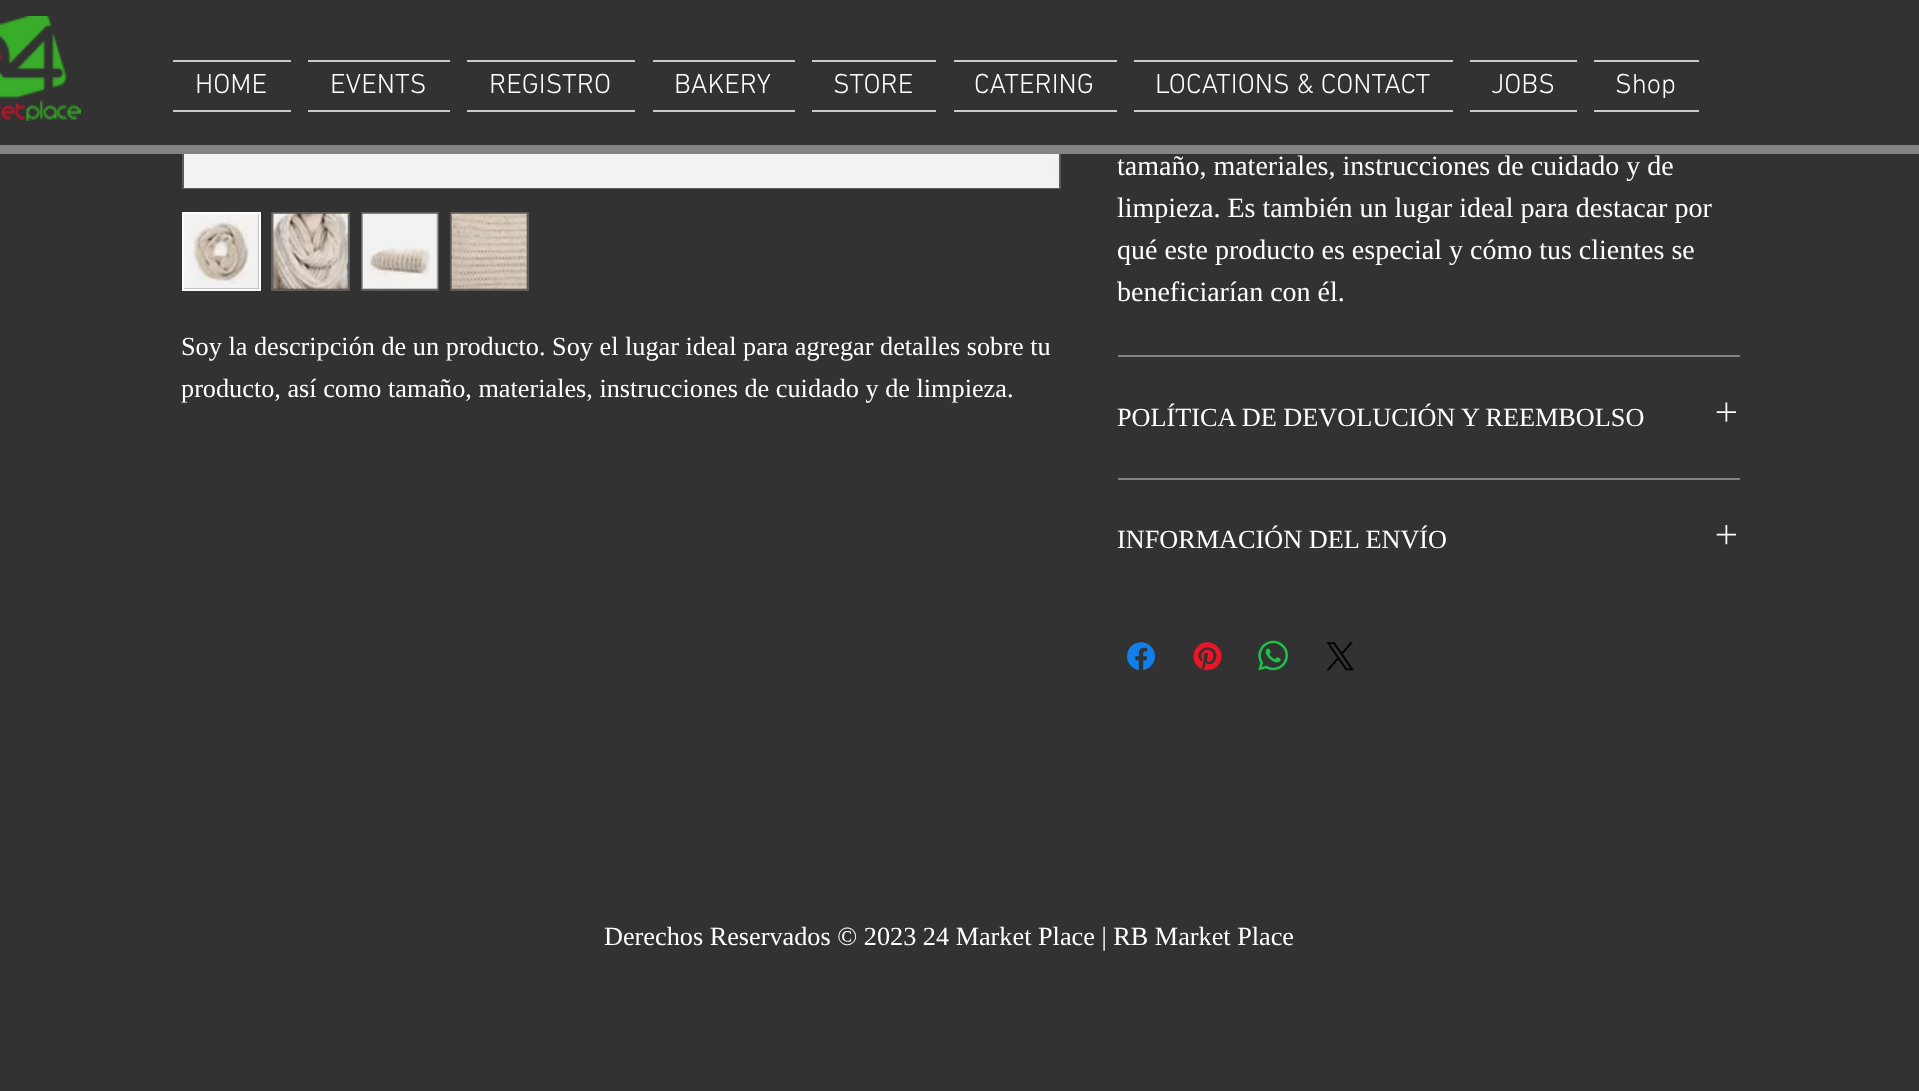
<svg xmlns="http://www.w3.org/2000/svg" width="1919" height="1091">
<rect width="100%" height="100%" fill="#323232"/>
<rect x="183" y="-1" width="877" height="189" fill="none" stroke="#5b5b5b" stroke-width="2"/>
<rect x="182" width="879" height="145" fill="#323232"/>
<rect y="145" width="1919" height="9" fill="#848484"/>
<image x="0" y="16" width="81" height="105" href="media/1.png"/>
<rect x="173" y="60" width="118" height="2" fill="#cacaca"/>
<rect x="173" y="110" width="118" height="2" fill="#cacaca"/>
<text x="195" y="93" style="font-family:'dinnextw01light';font-size:28px;font-weight:300;fill:#fff">HOME</text>
<rect x="308" y="60" width="142" height="2" fill="#cacaca"/>
<rect x="308" y="110" width="142" height="2" fill="#cacaca"/>
<text x="330" y="93" style="font-family:'dinnextw01light';font-size:28px;font-weight:300;fill:#fff">EVENTS</text>
<rect x="467" y="60" width="168" height="2" fill="#cacaca"/>
<rect x="467" y="110" width="168" height="2" fill="#cacaca"/>
<text x="489" y="93" style="font-family:'dinnextw01light';font-size:28px;font-weight:300;fill:#fff">REGISTRO</text>
<rect x="653" y="60" width="142" height="2" fill="#cacaca"/>
<rect x="653" y="110" width="142" height="2" fill="#cacaca"/>
<text x="674" y="93" style="font-family:'dinnextw01light';font-size:28px;font-weight:300;fill:#fff">BAKERY</text>
<rect x="812" y="60" width="124" height="2" fill="#cacaca"/>
<rect x="812" y="110" width="124" height="2" fill="#cacaca"/>
<text x="833" y="93" style="font-family:'dinnextw01light';font-size:28px;font-weight:300;fill:#fff">STORE</text>
<rect x="954" y="60" width="163" height="2" fill="#cacaca"/>
<rect x="954" y="110" width="163" height="2" fill="#cacaca"/>
<text x="974" y="93" style="font-family:'dinnextw01light';font-size:28px;font-weight:300;fill:#fff">CATERING</text>
<rect x="1134" y="60" width="319" height="2" fill="#cacaca"/>
<rect x="1134" y="110" width="319" height="2" fill="#cacaca"/>
<text x="1155" y="93" style="font-family:'dinnextw01light';font-size:28px;font-weight:300;fill:#fff">LOCATIONS &amp; CONTACT</text>
<rect x="1470" y="60" width="107" height="2" fill="#cacaca"/>
<rect x="1470" y="110" width="107" height="2" fill="#cacaca"/>
<text x="1491" y="93" style="font-family:'dinnextw01light';font-size:28px;font-weight:300;fill:#fff">JOBS</text>
<rect x="1594" y="60" width="105" height="2" fill="#cacaca"/>
<rect x="1594" y="110" width="105" height="2" fill="#cacaca"/>
<text x="1615" y="93" style="font-family:'dinnextw01light';font-size:28px;font-weight:300;fill:#fff">Shop</text>
<image x="184" y="154" width="875" height="34" href="media/2.png"/>
<rect x="183" y="213" width="77" height="77" fill="none" stroke="#fff" stroke-width="2"/>
<image x="183" y="213" width="76" height="76" href="media/3.png"/>
<rect x="272" y="213" width="77" height="77" fill="none" stroke="#5b5b5b" stroke-width="2"/>
<image x="272" y="213" width="77" height="77" href="media/4.png"/>
<rect x="362" y="213" width="76" height="77" fill="none" stroke="#5b5b5b" stroke-width="2"/>
<image x="361" y="213" width="77" height="77" href="media/5.png"/>
<rect x="451" y="213" width="77" height="77" fill="none" stroke="#5b5b5b" stroke-width="2"/>
<image x="451" y="213" width="76" height="77" href="media/6.png"/>
<text x="181" y="355" style="font-family:Liberation Serif;font-size:26.25px;fill:#fff">Soy la descripción de un producto. Soy el lugar ideal para agregar detalles sobre tu</text>
<text x="181" y="397" style="font-family:Liberation Serif;font-size:26.25px;fill:#fff">producto, así como tamaño, materiales, instrucciones de cuidado y de limpieza.</text>
<rect x="1118" y="355" width="622" height="2" fill="#848484"/>
<text x="1117" y="175" style="font-family:Liberation Serif;font-size:28px;fill:#fff">tamaño, materiales, instrucciones de cuidado y de</text>
<text x="1117" y="217" style="font-family:Liberation Serif;font-size:28px;fill:#fff">limpieza. Es también un lugar ideal para destacar por</text>
<text x="1117" y="259" style="font-family:Liberation Serif;font-size:28px;fill:#fff">qué este producto es especial y cómo tus clientes se</text>
<text x="1117" y="301" style="font-family:Liberation Serif;font-size:28px;fill:#fff">beneficiarían con él.</text>
<rect x="1118" y="478" width="622" height="2" fill="#848484"/>
<text x="1117" y="426" style="font-family:Liberation Serif;font-size:26.25px;fill:#fff">POLÍTICA DE DEVOLUCIÓN Y REEMBOLSO</text>
<image x="1716" y="402" width="20" height="20" href="media/7.png"/>
<text x="1117" y="548" style="font-family:Liberation Serif;font-size:26.25px;fill:#fff">INFORMACIÓN DEL ENVÍO</text>
<image x="1716" y="525" width="20" height="20" href="media/8.png"/>
<image x="1127" y="642" width="28" height="28" href="media/9.png"/>
<image x="1193" y="642" width="29" height="29" href="media/10.png"/>
<image x="1258" y="640" width="30" height="31" href="media/11.png"/>
<image x="1326" y="642" width="28" height="29" href="media/12.png"/>
<text x="604" y="945" style="font-family:Liberation Serif;font-size:26.25px;fill:#fff">Derechos Reservados © 2023 24 Market Place | RB Market Place</text>
</svg>
